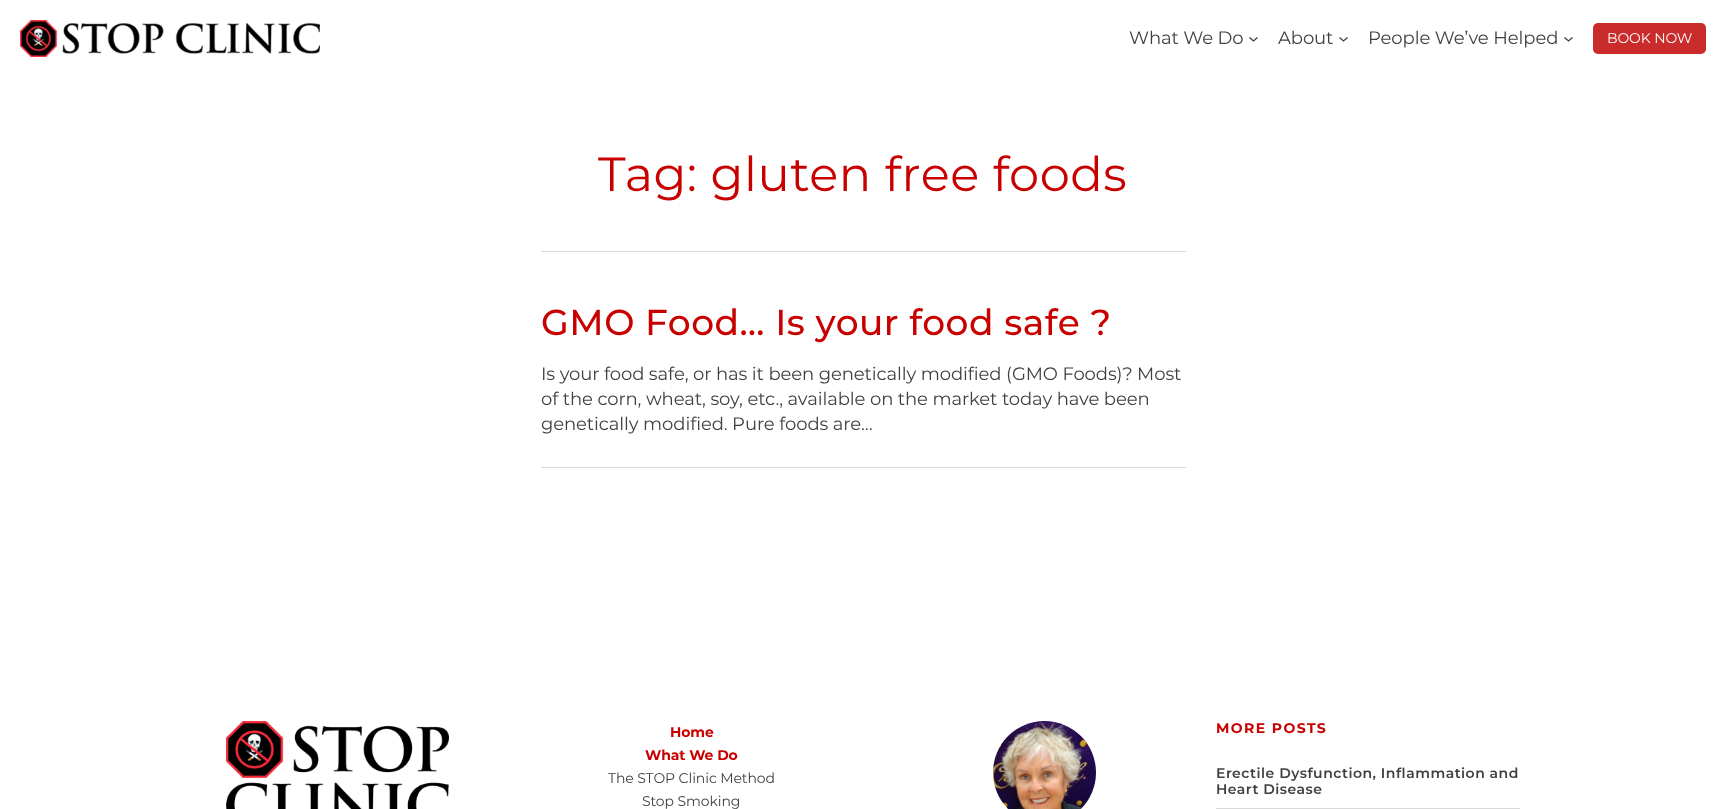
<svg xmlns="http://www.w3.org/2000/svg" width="1726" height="809">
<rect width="100%" height="100%" fill="#fff"/>
<image x="20" y="20" width="300" height="37" href="media/1.png"/>
<text x="1129" y="44" style="font-family:Montserrat;font-size:18px;letter-spacing:-0.1px;fill:#3f3f3f">What We Do</text>
<path d="M1249.5 37.5l4 3.5l4-3.5" fill="none" stroke="#3f3f3f" stroke-width="1.3"/>
<text x="1278" y="44" style="font-family:Montserrat;font-size:18px;letter-spacing:-0.1px;fill:#3f3f3f">About</text>
<path d="M1339.5 37.5l4 3.5l4-3.5" fill="none" stroke="#3f3f3f" stroke-width="1.3"/>
<text x="1368" y="44" style="font-family:Montserrat;font-size:18px;letter-spacing:-0.1px;fill:#3f3f3f">People We’ve Helped</text>
<path d="M1564.5 37.5l4 3.5l4-3.5" fill="none" stroke="#3f3f3f" stroke-width="1.3"/>
<rect x="1593" y="23" width="113" height="31" rx="5" fill="#ca2c2c"/>
<text x="1607" y="43" style="font-family:Montserrat;font-size:14px;letter-spacing:-0.1px;fill:#fff">BOOK NOW</text>
<text x="598" y="191" style="font-family:Montserrat;font-size:48px;letter-spacing:0.5px;fill:#c90000">Tag: gluten free foods</text>
<rect x="541" y="251" width="645" height="1" fill="#d9d9d9"/>
<text x="541" y="335" style="font-family:Montserrat;font-size:36px;font-weight:500;letter-spacing:0.5px;fill:#c90000">GMO Food… Is your food safe ?</text>
<text x="541" y="380" style="font-family:Montserrat;font-size:18px;letter-spacing:-0.1px;fill:#3f3f3f">Is your food safe, or has it been genetically modified (GMO Foods)? Most</text>
<text x="541" y="405" style="font-family:Montserrat;font-size:18px;letter-spacing:-0.1px;fill:#3f3f3f">of the corn, wheat, soy, etc., available on the market today have been</text>
<text x="541" y="430" style="font-family:Montserrat;font-size:18px;letter-spacing:-0.1px;fill:#3f3f3f">genetically modified. Pure foods are…</text>
<rect x="541" y="467" width="645" height="1" fill="#d9d9d9"/>
<image x="226" y="721" width="223" height="88" href="media/2.png"/>
<text x="670" y="737" style="font-family:Montserrat;font-size:14px;font-weight:bold;letter-spacing:-0.1px;fill:#c90000">Home</text>
<text x="645" y="760" style="font-family:Montserrat;font-size:14px;font-weight:bold;letter-spacing:-0.1px;fill:#c90000">What We Do</text>
<text x="608" y="783" style="font-family:Montserrat;font-size:14px;letter-spacing:-0.1px;fill:#3f3f3f">The STOP Clinic Method</text>
<text x="642" y="806" style="font-family:Montserrat;font-size:14px;letter-spacing:-0.1px;fill:#3f3f3f">Stop Smoking</text>
<image x="993" y="721" width="103" height="88" href="media/3.png"/>
<text x="1216" y="733" style="font-family:Montserrat;font-size:14px;font-weight:bold;letter-spacing:1.4px;fill:#c90000">MORE POSTS</text>
<rect x="1216" y="808" width="304" height="1" fill="#d9d9d9"/>
<text x="1216" y="778" style="font-family:Montserrat;font-size:14px;font-weight:600;letter-spacing:0.5px;fill:#3f3f3f">Erectile Dysfunction, Inflammation and</text>
<text x="1216" y="794" style="font-family:Montserrat;font-size:14px;font-weight:600;letter-spacing:0.5px;fill:#3f3f3f">Heart Disease</text>
</svg>
